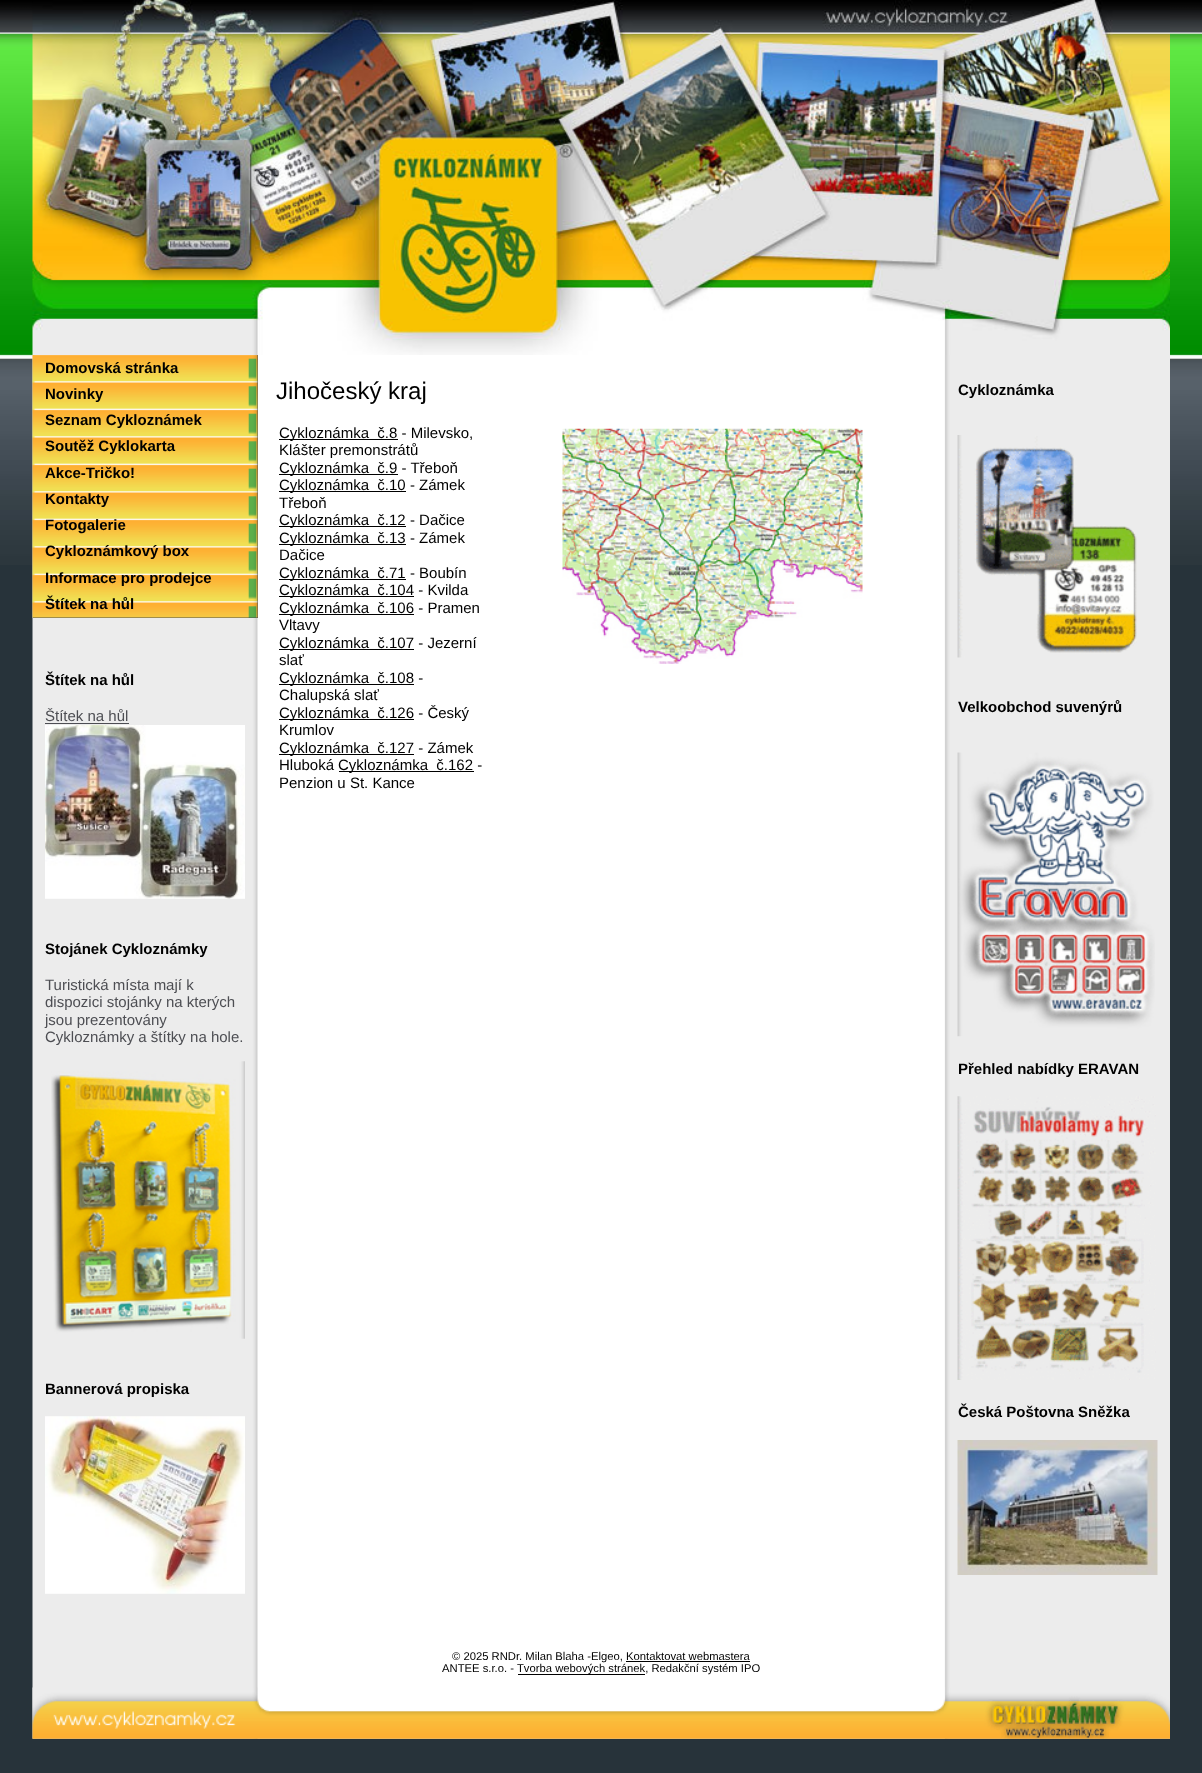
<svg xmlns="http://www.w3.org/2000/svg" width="1202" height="1773">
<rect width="100%" height="100%" fill="#27333a"/>
<image x="0" y="0" width="1202" height="565" href="media/1.png"/>
<image x="32" y="0" width="1138" height="355" href="media/2.png"/>
<image x="32" y="355" width="1138" height="1384" href="media/3.png"/>
<rect x="33" y="355" width="225" height="263" fill="#4d4e53"/>
<image x="32" y="355" width="226" height="263" href="media/4.png"/>
<text x="45" y="373" style="font-family:Liberation Sans;font-size:15px;font-weight:bold;fill:#000">Domovská stránka</text>
<text x="45" y="399" style="font-family:Liberation Sans;font-size:15px;font-weight:bold;fill:#000">Novinky</text>
<text x="45" y="425" style="font-family:Liberation Sans;font-size:15px;font-weight:bold;fill:#000">Seznam Cykloznámek</text>
<text x="45" y="451" style="font-family:Liberation Sans;font-size:15px;font-weight:bold;fill:#000">Soutěž Cyklokarta</text>
<text x="45" y="478" style="font-family:Liberation Sans;font-size:15px;font-weight:bold;fill:#000">Akce-Tričko!</text>
<text x="45" y="504" style="font-family:Liberation Sans;font-size:15px;font-weight:bold;fill:#000">Kontakty</text>
<text x="45" y="530" style="font-family:Liberation Sans;font-size:15px;font-weight:bold;fill:#000">Fotogalerie</text>
<text x="45" y="556" style="font-family:Liberation Sans;font-size:15px;font-weight:bold;fill:#000">Cykloznámkový box</text>
<text x="45" y="583" style="font-family:Liberation Sans;font-size:15px;font-weight:bold;fill:#000">Informace pro prodejce</text>
<text x="45" y="609" style="font-family:Liberation Sans;font-size:15px;font-weight:bold;fill:#000">Štítek na hůl</text>
<text x="45" y="685" style="font-family:Liberation Sans;font-size:15px;font-weight:bold;fill:#000">Štítek na hůl</text>
<text x="45" y="721" style="font-family:Liberation Sans;font-size:15px;fill:#4d4e53">Štítek na hůl</text>
<rect x="45" y="723" width="84" height="1" fill="#4d4e53"/>
<image x="45" y="725" width="200" height="174" href="media/5.png"/>
<text x="45" y="954" style="font-family:Liberation Sans;font-size:15px;font-weight:bold;fill:#000">Stojánek Cykloznámky</text>
<text x="45" y="990" style="font-family:Liberation Sans;font-size:15px;fill:#4d4e53">Turistická místa mají k</text>
<text x="45" y="1007" style="font-family:Liberation Sans;font-size:15px;fill:#4d4e53">dispozici stojánky na kterých</text>
<text x="45" y="1025" style="font-family:Liberation Sans;font-size:15px;fill:#4d4e53">jsou prezentovány</text>
<text x="45" y="1042" style="font-family:Liberation Sans;font-size:15px;fill:#4d4e53">Cykloznámky a štítky na hole.</text>
<image x="51" y="1061" width="194" height="278" href="media/6.png"/>
<text x="45" y="1394" style="font-family:Liberation Sans;font-size:15px;font-weight:bold;fill:#000">Bannerová propiska</text>
<image x="45" y="1416" width="200" height="178" href="media/7.png"/>
<text x="276" y="399" style="font-family:Liberation Sans;font-size:24px;fill:#000">Jihočeský kraj</text>
<rect x="279" y="439" width="119" height="1" fill="#000"/>
<text x="279" y="438" style="font-family:Liberation Sans;font-size:15px;fill:#000" xml:space="preserve">Cykloznámka  č.8 - Milevsko,</text>
<text x="279" y="455" style="font-family:Liberation Sans;font-size:15px;fill:#000">Klášter premonstrátů</text>
<rect x="279" y="474" width="119" height="1" fill="#000"/>
<text x="279" y="473" style="font-family:Liberation Sans;font-size:15px;fill:#000" xml:space="preserve">Cykloznámka  č.9 - Třeboň</text>
<rect x="279" y="491" width="127" height="1" fill="#000"/>
<text x="279" y="490" style="font-family:Liberation Sans;font-size:15px;fill:#000" xml:space="preserve">Cykloznámka  č.10 - Zámek</text>
<text x="279" y="508" style="font-family:Liberation Sans;font-size:15px;fill:#000">Třeboň</text>
<rect x="279" y="526" width="127" height="1" fill="#000"/>
<text x="279" y="525" style="font-family:Liberation Sans;font-size:15px;fill:#000" xml:space="preserve">Cykloznámka  č.12 - Dačice</text>
<rect x="279" y="544" width="127" height="1" fill="#000"/>
<text x="279" y="543" style="font-family:Liberation Sans;font-size:15px;fill:#000" xml:space="preserve">Cykloznámka  č.13 - Zámek</text>
<text x="279" y="560" style="font-family:Liberation Sans;font-size:15px;fill:#000">Dačice</text>
<rect x="279" y="579" width="127" height="1" fill="#000"/>
<text x="279" y="578" style="font-family:Liberation Sans;font-size:15px;fill:#000" xml:space="preserve">Cykloznámka  č.71 - Boubín</text>
<rect x="279" y="596" width="135" height="1" fill="#000"/>
<text x="279" y="595" style="font-family:Liberation Sans;font-size:15px;fill:#000" xml:space="preserve">Cykloznámka  č.104 - Kvilda</text>
<rect x="279" y="614" width="135" height="1" fill="#000"/>
<text x="279" y="613" style="font-family:Liberation Sans;font-size:15px;fill:#000" xml:space="preserve">Cykloznámka  č.106 - Pramen</text>
<text x="279" y="630" style="font-family:Liberation Sans;font-size:15px;fill:#000">Vltavy</text>
<rect x="279" y="649" width="135" height="1" fill="#000"/>
<text x="279" y="648" style="font-family:Liberation Sans;font-size:15px;fill:#000" xml:space="preserve">Cykloznámka  č.107 - Jezerní</text>
<text x="279" y="665" style="font-family:Liberation Sans;font-size:15px;fill:#000">slať</text>
<rect x="279" y="684" width="135" height="1" fill="#000"/>
<text x="279" y="683" style="font-family:Liberation Sans;font-size:15px;fill:#000" xml:space="preserve">Cykloznámka  č.108 -</text>
<text x="279" y="700" style="font-family:Liberation Sans;font-size:15px;fill:#000">Chalupská slať</text>
<rect x="279" y="719" width="135" height="1" fill="#000"/>
<text x="279" y="718" style="font-family:Liberation Sans;font-size:15px;fill:#000" xml:space="preserve">Cykloznámka  č.126 - Český</text>
<text x="279" y="735" style="font-family:Liberation Sans;font-size:15px;fill:#000">Krumlov</text>
<rect x="279" y="754" width="135" height="1" fill="#000"/>
<text x="279" y="753" style="font-family:Liberation Sans;font-size:15px;fill:#000" xml:space="preserve">Cykloznámka  č.127 - Zámek</text>
<text x="279" y="770" style="font-family:Liberation Sans;font-size:15px;fill:#000">Hluboká</text>
<rect x="339" y="771" width="135" height="1" fill="#000"/>
<text x="338" y="770" style="font-family:Liberation Sans;font-size:15px;fill:#000" xml:space="preserve">Cykloznámka  č.162 -</text>
<text x="279" y="788" style="font-family:Liberation Sans;font-size:15px;fill:#000">Penzion u St. Kance</text>
<image x="562" y="428" width="301" height="236" href="media/8.png"/>
<text x="958" y="395" style="font-family:Liberation Sans;font-size:15px;font-weight:bold;fill:#000">Cykloznámka</text>
<image x="957" y="435" width="180" height="223" href="media/9.png"/>
<text x="958" y="712" style="font-family:Liberation Sans;font-size:15px;font-weight:bold;fill:#000">Velkoobchod suvenýrů</text>
<image x="957" y="752" width="198" height="285" href="media/10.png"/>
<text x="958" y="1074" style="font-family:Liberation Sans;font-size:15px;font-weight:bold;fill:#000">Přehled nabídky ERAVAN</text>
<image x="957" y="1096" width="199" height="284" href="media/11.png"/>
<text x="958" y="1417" style="font-family:Liberation Sans;font-size:15px;font-weight:bold;fill:#000">Česká Poštovna Sněžka</text>
<image x="957" y="1440" width="201" height="135" href="media/12.png"/>
<text x="452" y="1660" style="font-family:Liberation Sans;font-size:11.25px;fill:#000">© 2025 RNDr. Milan Blaha -Elgeo, Kontaktovat webmastera</text>
<rect x="626" y="1661" width="124" height="1" fill="#000"/>
<text x="442" y="1672" style="font-family:Liberation Sans;font-size:11.25px;fill:#000">ANTEE s.r.o. -</text>
<rect x="518" y="1674" width="127" height="1" fill="#000"/>
<text x="517" y="1672" style="font-family:Liberation Sans;font-size:11.25px;fill:#000">Tvorba webových stránek, Redakční systém IPO</text>
<image x="32" y="1687" width="1138" height="52" href="media/13.png"/>
</svg>
